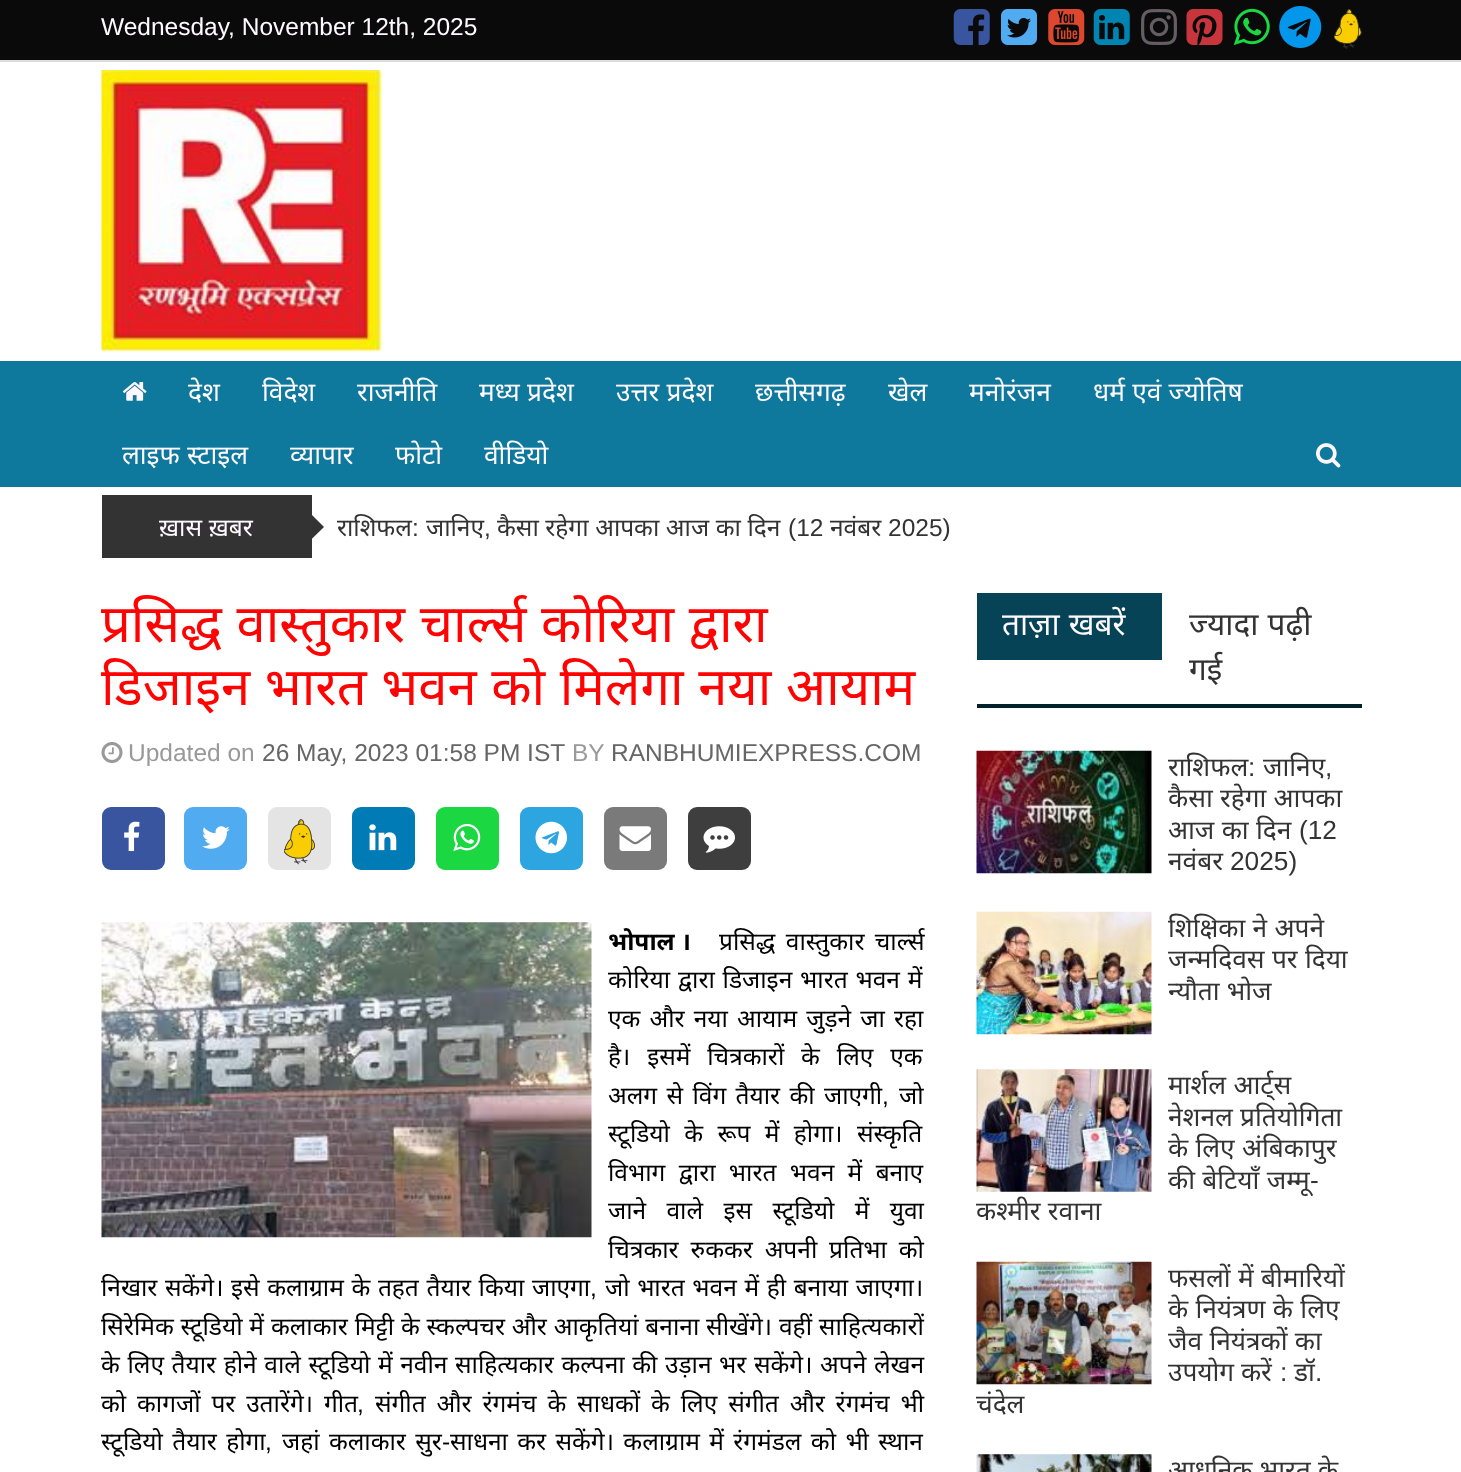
<svg xmlns="http://www.w3.org/2000/svg" width="1461" height="1472">
<rect width="100%" height="100%" fill="#fff"/>
<rect width="1461" height="60" fill="#0a0a0a"/>
<rect y="60" width="1461" height="2" fill="#ddd"/>
<text x="101" y="35" style="font-family:Liberation Sans;font-size:24.5px;fill:#fffaff">Wednesday, November 12th, 2025</text>
<image x="953" y="9" width="37" height="36" href="media/1.png"/>
<image x="1001" y="9" width="36" height="36" href="media/2.png"/>
<image x="1048" y="9" width="37" height="36" href="media/3.png"/>
<image x="1093" y="9" width="37" height="36" href="media/4.png"/>
<image x="1141" y="9" width="36" height="36" href="media/5.png"/>
<image x="1186" y="9" width="37" height="36" href="media/6.png"/>
<image x="1233" y="8" width="37" height="38" href="media/7.png"/>
<image x="1279" y="6" width="43" height="42" href="media/8.png"/>
<image x="1334" y="9" width="28" height="40" href="media/9.png"/>
<image x="101" y="70" width="281" height="282" href="media/10.png"/>
<rect y="361" width="1461" height="126" fill="#0e799c"/>
<image x="122" y="382" width="25" height="19" href="media/11.png"/>
<text x="188" y="401" style="font-family:Noto Sans;font-size:26.25px;fill:#fffaff">देश</text>
<text x="262" y="401" style="font-family:Noto Sans;font-size:26.25px;fill:#fffaff">विदेश</text>
<text x="357" y="401" style="font-family:Noto Sans;font-size:26.25px;fill:#fffaff">राजनीति</text>
<text x="479" y="401" word-spacing="0.5" style="font-family:Noto Sans;font-size:26.25px;fill:#fffaff">मध्य प्रदेश</text>
<text x="616" y="401" word-spacing="0.5" style="font-family:Noto Sans;font-size:26.25px;fill:#fffaff">उत्तर प्रदेश</text>
<text x="755" y="401" style="font-family:Noto Sans;font-size:26.25px;fill:#fffaff">छत्तीसगढ़</text>
<text x="888" y="401" style="font-family:Noto Sans;font-size:26.25px;fill:#fffaff">खेल</text>
<text x="969" y="401" style="font-family:Noto Sans;font-size:26.25px;fill:#fffaff">मनोरंजन</text>
<text x="1093" y="401" word-spacing="0.5" style="font-family:Noto Sans;font-size:26.25px;fill:#fffaff">धर्म एवं ज्योतिष</text>
<text x="122" y="464" word-spacing="0.5" style="font-family:Noto Sans;font-size:26.25px;fill:#fffaff">लाइफ स्टाइल</text>
<text x="290" y="464" style="font-family:Noto Sans;font-size:26.25px;fill:#fffaff">व्यापार</text>
<text x="395" y="464" style="font-family:Noto Sans;font-size:26.25px;fill:#fffaff">फोटो</text>
<text x="484" y="464" style="font-family:Noto Sans;font-size:26.25px;fill:#fffaff">वीडियो</text>
<image x="1316" y="443" width="25" height="25" href="media/12.png"/>
<rect x="102" y="495" width="210" height="63" fill="#333"/>
<text x="159" y="536" word-spacing="0.5" style="font-family:Noto Sans;font-size:24.5px;fill:#fffaff">ख़ास ख़बर</text>
<path d="M304.5 546v-38.5l19.5 19.5z" fill="#333"/>
<text x="337" y="536" style="font-family:Noto Sans;font-size:24.5px;fill:#333">राशिफल</text>
<text x="412" y="536" style="font-family:Liberation Sans;font-size:24.5px;fill:#333">:</text>
<text x="426" y="536" style="font-family:Noto Sans;font-size:24.5px;fill:#333">जानिए</text>
<text x="484" y="536" style="font-family:Liberation Sans;font-size:24.5px;fill:#333">,</text>
<text x="497" y="536" word-spacing="0.25" style="font-family:Noto Sans;font-size:24.5px;fill:#333">कैसा रहेगा आपका आज का दिन</text>
<text x="788" y="536" style="font-family:Liberation Sans;font-size:24.5px;fill:#333">(12</text>
<text x="830" y="536" style="font-family:Noto Sans;font-size:24.5px;fill:#333">नवंबर</text>
<text x="888" y="536" style="font-family:Liberation Sans;font-size:24.5px;fill:#333">2025)</text>
<text x="101" y="642" word-spacing="1" style="font-family:Noto Sans;font-size:52.5px;fill:#ff0303">प्रसिद्ध वास्‍तुकार चार्ल्‍स कोरिया द्वारा</text>
<text x="101" y="705" word-spacing="1" style="font-family:Noto Sans;font-size:52.5px;fill:#ff0303">डिजाइन भारत भवन को मिलेगा नया आयाम</text>
<image x="101" y="742" width="22" height="21" href="media/13.png"/>
<text x="128" y="761" style="font-family:Liberation Sans;font-size:24.5px;fill:#999">Updated on</text>
<text x="262" y="761" style="font-family:Liberation Sans;font-size:24.5px;fill:#666">26 May, 2023 01:58 PM IST</text>
<text x="572" y="761" style="font-family:Liberation Sans;font-size:24.5px;fill:#999">BY</text>
<text x="611" y="761" style="font-family:Liberation Sans;font-size:24.5px;fill:#666">RANBHUMIEXPRESS.COM</text>
<rect x="102" y="807" width="63" height="63" rx="9" fill="#3a559f"/>
<image x="124" y="821" width="16" height="30" href="media/14.png"/>
<rect x="184" y="807" width="63" height="63" rx="9" fill="#50abf1"/>
<image x="202" y="826" width="28" height="23" href="media/15.png"/>
<rect x="268" y="807" width="63" height="63" rx="9" fill="#e4e4e4"/>
<image x="284" y="819" width="31" height="46" href="media/16.png"/>
<rect x="352" y="807" width="63" height="63" rx="9" fill="#007bb5"/>
<image x="369" y="824" width="28" height="27" href="media/17.png"/>
<rect x="436" y="807" width="63" height="63" rx="9" fill="#1bd741"/>
<image x="453" y="823" width="28" height="28" href="media/18.png"/>
<rect x="520" y="807" width="63" height="63" rx="9" fill="#2ca5e0"/>
<image x="535" y="821" width="32" height="33" href="media/19.png"/>
<rect x="604" y="807" width="63" height="63" rx="9" fill="#7a7a7a"/>
<image x="619" y="826" width="32" height="25" href="media/20.png"/>
<rect x="688" y="807" width="63" height="63" rx="9" fill="#3e3e3e"/>
<image x="703" y="826" width="32" height="27" href="media/21.png"/>
<image x="101" y="922" width="491" height="316" href="media/22.png"/>
<text x="608" y="950" style="font-family:Noto Sans;font-size:24.5px;font-weight:bold;fill:#000">भोपाल ।</text>
<text x="719" y="950" word-spacing="4" style="font-family:Noto Sans;font-size:24.5px;fill:#000">प्रसिद्ध वास्‍तुकार चार्ल्‍स</text>
<text x="608" y="988" word-spacing="1.5" style="font-family:Noto Sans;font-size:24.5px;fill:#000">कोरिया द्वारा डिजाइन भारत भवन में</text>
<text x="608" y="1027" word-spacing="2.75" style="font-family:Noto Sans;font-size:24.5px;fill:#000">एक और नया आयाम जुड़ने जा रहा</text>
<text x="608" y="1065" word-spacing="10.5" style="font-family:Noto Sans;font-size:24.5px;fill:#000">है। इसमें चित्रकारों के लिए एक</text>
<text x="608" y="1104" word-spacing="3" style="font-family:Noto Sans;font-size:24.5px;fill:#000">अलग से विंग तैयार की जाएगी</text>
<text x="882" y="1104" style="font-family:Liberation Sans;font-size:24.5px;fill:#000">,</text>
<text x="899" y="1104" style="font-family:Noto Sans;font-size:24.5px;fill:#000">जो</text>
<text x="608" y="1142" word-spacing="8" style="font-family:Noto Sans;font-size:24.5px;fill:#000">स्टूडियो के रूप में होगा। संस्कृति</text>
<text x="608" y="1181" word-spacing="7" style="font-family:Noto Sans;font-size:24.5px;fill:#000">विभाग द्वारा भारत भवन में बनाए</text>
<text x="608" y="1219" word-spacing="14" style="font-family:Noto Sans;font-size:24.5px;fill:#000">जाने वाले इस स्टूडियो में युवा</text>
<text x="608" y="1258" word-spacing="5.5" style="font-family:Noto Sans;font-size:24.5px;fill:#000">चित्रकार रुककर अपनी प्रतिभा को</text>
<text x="101" y="1296" word-spacing="1.25" style="font-family:Noto Sans;font-size:24.5px;fill:#000">निखार सकेंगे। इसे कलाग्राम के तहत तैयार किया जाएगा</text>
<text x="590" y="1296" style="font-family:Liberation Sans;font-size:24.5px;fill:#000">,</text>
<text x="605" y="1296" word-spacing="1.25" style="font-family:Noto Sans;font-size:24.5px;fill:#000">जो भारत भवन में ही बनाया जाएगा।</text>
<text x="101" y="1335" word-spacing="0.5" style="font-family:Noto Sans;font-size:24.5px;fill:#000">सिरेमिक स्टूडियो में कलाकार मिट्टी के स्कल्पचर और आकृतियां बनाना सीखेंगे। वहीं साहित्यकारों</text>
<text x="101" y="1373" word-spacing="1.25" style="font-family:Noto Sans;font-size:24.5px;fill:#000">के लिए तैयार होने वाले स्टूडियो में नवीन साहित्यकार कल्पना की उड़ान भर सकेंगे। अपने लेखन</text>
<text x="101" y="1412" word-spacing="4.5" style="font-family:Noto Sans;font-size:24.5px;fill:#000">को कागजों पर उतारेंगे। गीत</text>
<text x="357" y="1412" style="font-family:Liberation Sans;font-size:24.5px;fill:#000">,</text>
<text x="375" y="1412" word-spacing="4.5" style="font-family:Noto Sans;font-size:24.5px;fill:#000">संगीत और रंगमंच के साधकों के लिए संगीत और रंगमंच भी</text>
<text x="101" y="1450" word-spacing="3" style="font-family:Noto Sans;font-size:24.5px;fill:#000">स्टूडियो तैयार होगा</text>
<text x="282" y="1450" word-spacing="3" style="font-family:Noto Sans;font-size:24.5px;fill:#000">जहां कलाकार सुर</text>
<text x="442" y="1450" style="font-family:Liberation Sans;font-size:24.5px;fill:#000">-</text>
<text x="450" y="1450" word-spacing="3" style="font-family:Noto Sans;font-size:24.5px;fill:#000">साधना कर सकेंगे। कलाग्राम में रंगमंडल को भी स्थान</text>
<text x="265" y="1450" style="font-family:Liberation Sans;font-size:24.5px;fill:#000">,</text>
<rect x="977" y="704" width="385" height="4" fill="#02212b"/>
<rect x="977" y="593" width="185" height="67" fill="#064357"/>
<text x="1002" y="635" word-spacing="1" style="font-family:Noto Sans;font-size:31.5px;fill:#fffaff">ताज़ा खबरें</text>
<text x="1189" y="635" word-spacing="1" style="font-family:Noto Sans;font-size:31.5px;fill:#333">ज्यादा पढ़ी</text>
<text x="1189" y="680" style="font-family:Noto Sans;font-size:31.5px;fill:#333">गई</text>
<image x="976" y="750" width="176" height="124" href="media/23.png"/>
<text x="1168" y="776" style="font-family:Noto Sans;font-size:26.25px;fill:#333">राशिफल</text>
<text x="1248" y="776" style="font-family:Liberation Sans;font-size:26.25px;fill:#333">:</text>
<text x="1263" y="776" style="font-family:Noto Sans;font-size:26.25px;fill:#333">जानिए</text>
<text x="1325" y="776" style="font-family:Liberation Sans;font-size:26.25px;fill:#333">,</text>
<text x="1168" y="807" word-spacing="0.5" style="font-family:Noto Sans;font-size:26.25px;fill:#333">कैसा रहेगा आपका</text>
<text x="1168" y="839" word-spacing="0.5" style="font-family:Noto Sans;font-size:26.25px;fill:#333">आज का दिन</text>
<text x="1299" y="839" style="font-family:Liberation Sans;font-size:26.25px;fill:#333">(12</text>
<text x="1168" y="870" style="font-family:Noto Sans;font-size:26.25px;fill:#333">नवंबर</text>
<text x="1230" y="870" style="font-family:Liberation Sans;font-size:26.25px;fill:#333">2025)</text>
<image x="976" y="911" width="176" height="124" href="media/24.png"/>
<text x="1168" y="937" word-spacing="0.5" style="font-family:Noto Sans;font-size:26.25px;fill:#333">शिक्षिका ने अपने</text>
<text x="1168" y="968" word-spacing="0.5" style="font-family:Noto Sans;font-size:26.25px;fill:#333">जन्मदिवस पर दिया</text>
<text x="1168" y="1000" word-spacing="0.5" style="font-family:Noto Sans;font-size:26.25px;fill:#333">न्यौता भोज</text>
<image x="976" y="1069" width="176" height="123" href="media/25.png"/>
<text x="1168" y="1094" word-spacing="0.5" style="font-family:Noto Sans;font-size:26.25px;fill:#333">मार्शल आर्ट्स</text>
<text x="1168" y="1126" word-spacing="0.5" style="font-family:Noto Sans;font-size:26.25px;fill:#333">नेशनल प्रतियोगिता</text>
<text x="1168" y="1157" word-spacing="0.5" style="font-family:Noto Sans;font-size:26.25px;fill:#333">के लिए अंबिकापुर</text>
<text x="1168" y="1189" word-spacing="0.5" style="font-family:Noto Sans;font-size:26.25px;fill:#333">की बेटियाँ जम्मू</text>
<text x="1310" y="1189" style="font-family:Liberation Sans;font-size:26.25px;fill:#333">-</text>
<text x="976" y="1220" word-spacing="0.5" style="font-family:Noto Sans;font-size:26.25px;fill:#333">कश्मीर रवाना</text>
<image x="976" y="1261" width="176" height="124" href="media/26.png"/>
<text x="1168" y="1287" word-spacing="0.5" style="font-family:Noto Sans;font-size:26.25px;fill:#333">फसलों में बीमारियों</text>
<text x="1168" y="1318" word-spacing="0.5" style="font-family:Noto Sans;font-size:26.25px;fill:#333">के नियंत्रण के लिए</text>
<text x="1168" y="1350" word-spacing="0.5" style="font-family:Noto Sans;font-size:26.25px;fill:#333">जैव नियंत्रकों का</text>
<text x="1168" y="1381" style="font-family:Noto Sans;font-size:26.25px;fill:#333">उपयोग करें</text>
<text x="1280" y="1381" style="font-family:Liberation Sans;font-size:26.25px;fill:#333">:</text>
<text x="1294" y="1381" style="font-family:Noto Sans;font-size:26.25px;fill:#333">डॉ</text>
<text x="1315" y="1381" style="font-family:Liberation Sans;font-size:26.25px;fill:#333">.</text>
<text x="976" y="1413" style="font-family:Noto Sans;font-size:26.25px;fill:#333">चंदेल</text>
<image x="976" y="1454" width="176" height="18" href="media/27.png"/>
<text x="1168" y="1479" word-spacing="0.5" style="font-family:Noto Sans;font-size:26.25px;fill:#333">आधुनिक भारत के</text>
</svg>
